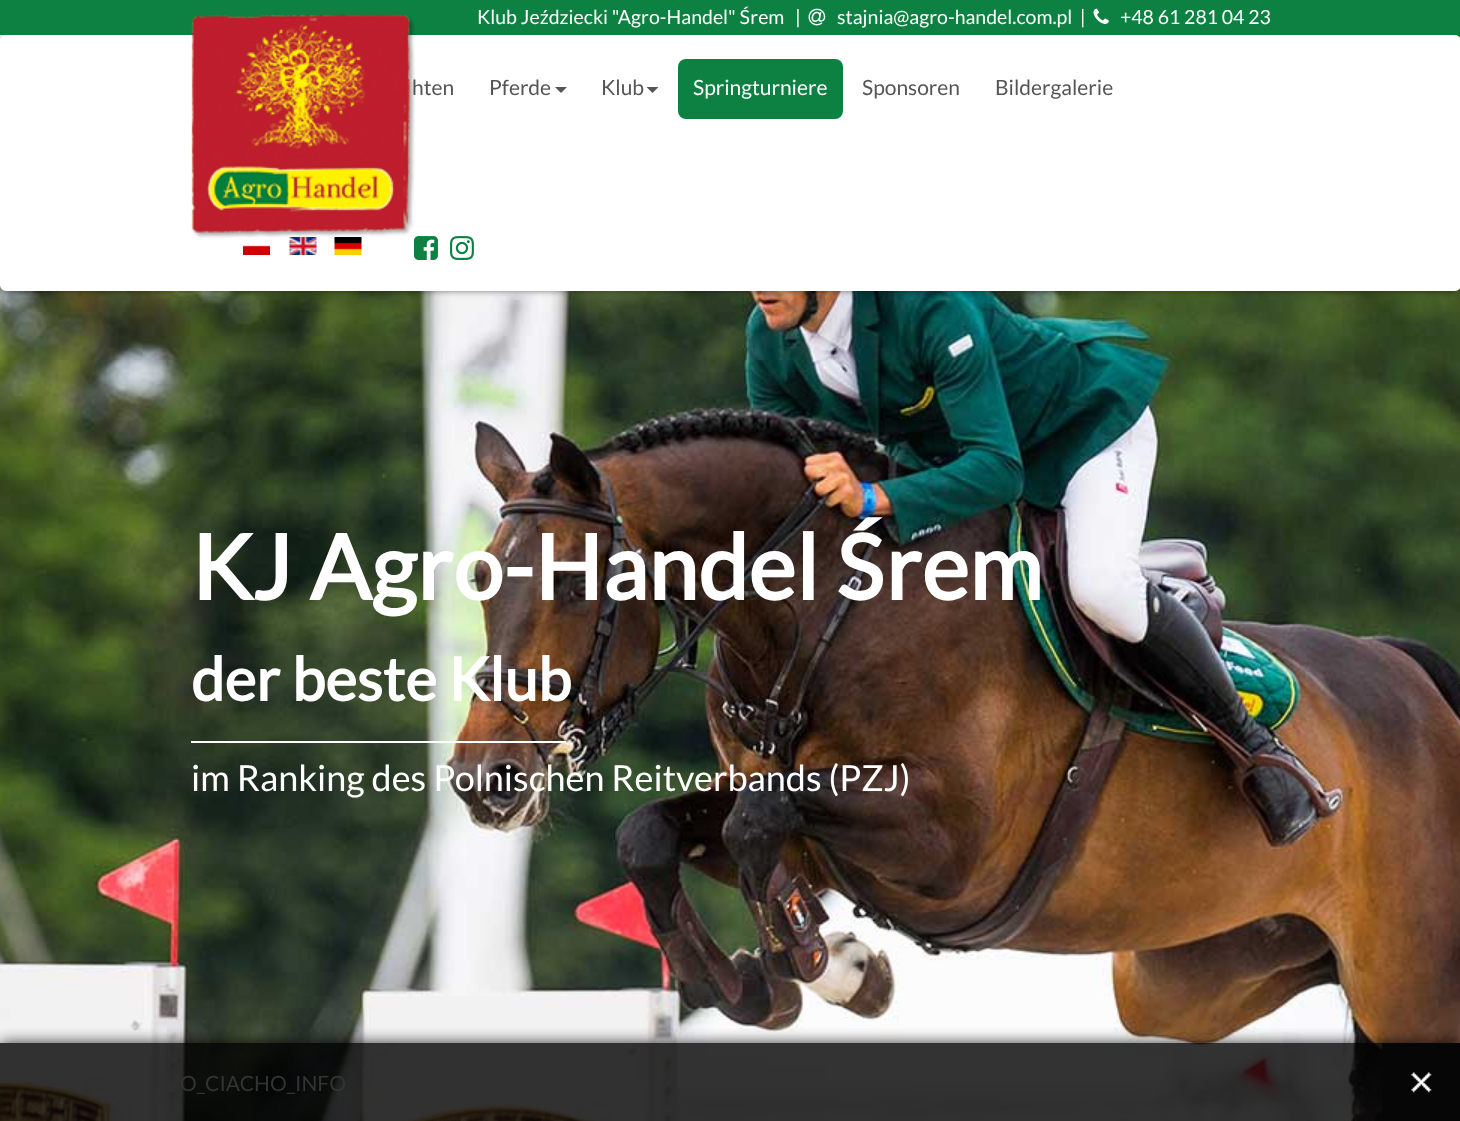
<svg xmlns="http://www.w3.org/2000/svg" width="1460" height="1121">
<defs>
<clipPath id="clip1"><rect x="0" y="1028" width="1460" height="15"/></clipPath>
</defs>
<rect width="100%" height="100%" fill="#fff"/>
<image x="0" y="35" width="1460" height="1086" href="media/1.png"/>
<rect x="8" y="15" width="1446" height="20" fill="#00000080" filter="blur(3px)"/>
<rect width="1460" height="35" fill="#0d8141"/>
<text x="477" y="24" style="font-family:Lato;font-size:19.5px;fill:#fff">Klub Jeździecki "Agro-Handel" Śrem</text>
<text x="795" y="24" style="font-family:Lato;font-size:19.5px;fill:#fff">|</text>
<image x="808" y="8" width="18" height="18" href="media/2.png"/>
<text x="837" y="24" style="font-family:Lato;font-size:19.5px;fill:#fff" xml:space="preserve">stajnia@agro-handel.com.pl  |</text>
<image x="1093" y="8" width="16" height="16" href="media/3.png"/>
<text x="1120" y="24" style="font-family:Lato;font-size:19.5px;fill:#fff">+48 61 281 04 23</text>
<rect x="8" y="50" width="1446" height="241" fill="#00000080" filter="blur(3px)"/>
<rect x="1" y="36" width="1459" height="254" rx="5" fill="#fff" stroke="#fff" stroke-width="2"/>
<text x="412" y="95" style="font-family:Lato;font-size:21px;fill:#555">hten</text>
<image x="289" y="237" width="28" height="18" href="media/6.png"/>
<image x="334" y="237" width="28" height="18" href="media/7.png"/>
<image x="414" y="236" width="24" height="24" href="media/8.png"/>
<image x="191" y="14" width="224" height="224" href="media/4.png"/>
<text x="489" y="95" style="font-family:Lato;font-size:21px;fill:#555">Pferde</text>
<path d="M555 87h12l-6 6z" fill="#555"/>
<text x="601" y="95" style="font-family:Lato;font-size:21px;fill:#555">Klub</text>
<path d="M646.5 87h12l-6 6z" fill="#555"/>
<rect x="678" y="59" width="165" height="60" rx="8" fill="#0d8141"/>
<text x="693" y="95" style="font-family:Lato;font-size:21px;fill:#fff">Springturniere</text>
<text x="862" y="95" style="font-family:Lato;font-size:21px;fill:#555">Sponsoren</text>
<text x="995" y="95" style="font-family:Lato;font-size:21px;fill:#555">Bildergalerie</text>
<image x="243" y="245" width="27" height="10" href="media/5.png"/>
<image x="450" y="236" width="24" height="24" href="media/9.png"/>
<text x="191" y="600" style="font-family:Lato;font-size:90px;font-weight:bold;fill:#fff">KJ Agro-Handel Śrem</text>
<text x="191" y="701" style="font-family:Lato;font-size:60px;font-weight:bold;fill:#fff">der beste Klub</text>
<rect x="191" y="741" width="375" height="2" fill="#fff"/>
<text x="191" y="791" style="font-family:Lato;font-size:36px;fill:#fff">im Ranking des Polnischen Reitverbands (PZJ)</text>
<g clip-path="url(#clip1)">
<rect y="1043" width="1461" height="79" fill="#000000cc" filter="blur(7.5px)"/>
</g>
<rect y="1043" width="1382" height="78" fill="#000000cc"/>
<text x="180" y="1091" style="font-family:Lato;font-size:21px;fill:#333">O_CIACHO_INFO</text>
<rect x="1382" y="1043" width="78" height="78" fill="#060606"/>
<image x="1411" y="1072" width="21" height="21" href="media/10.png"/>
</svg>
